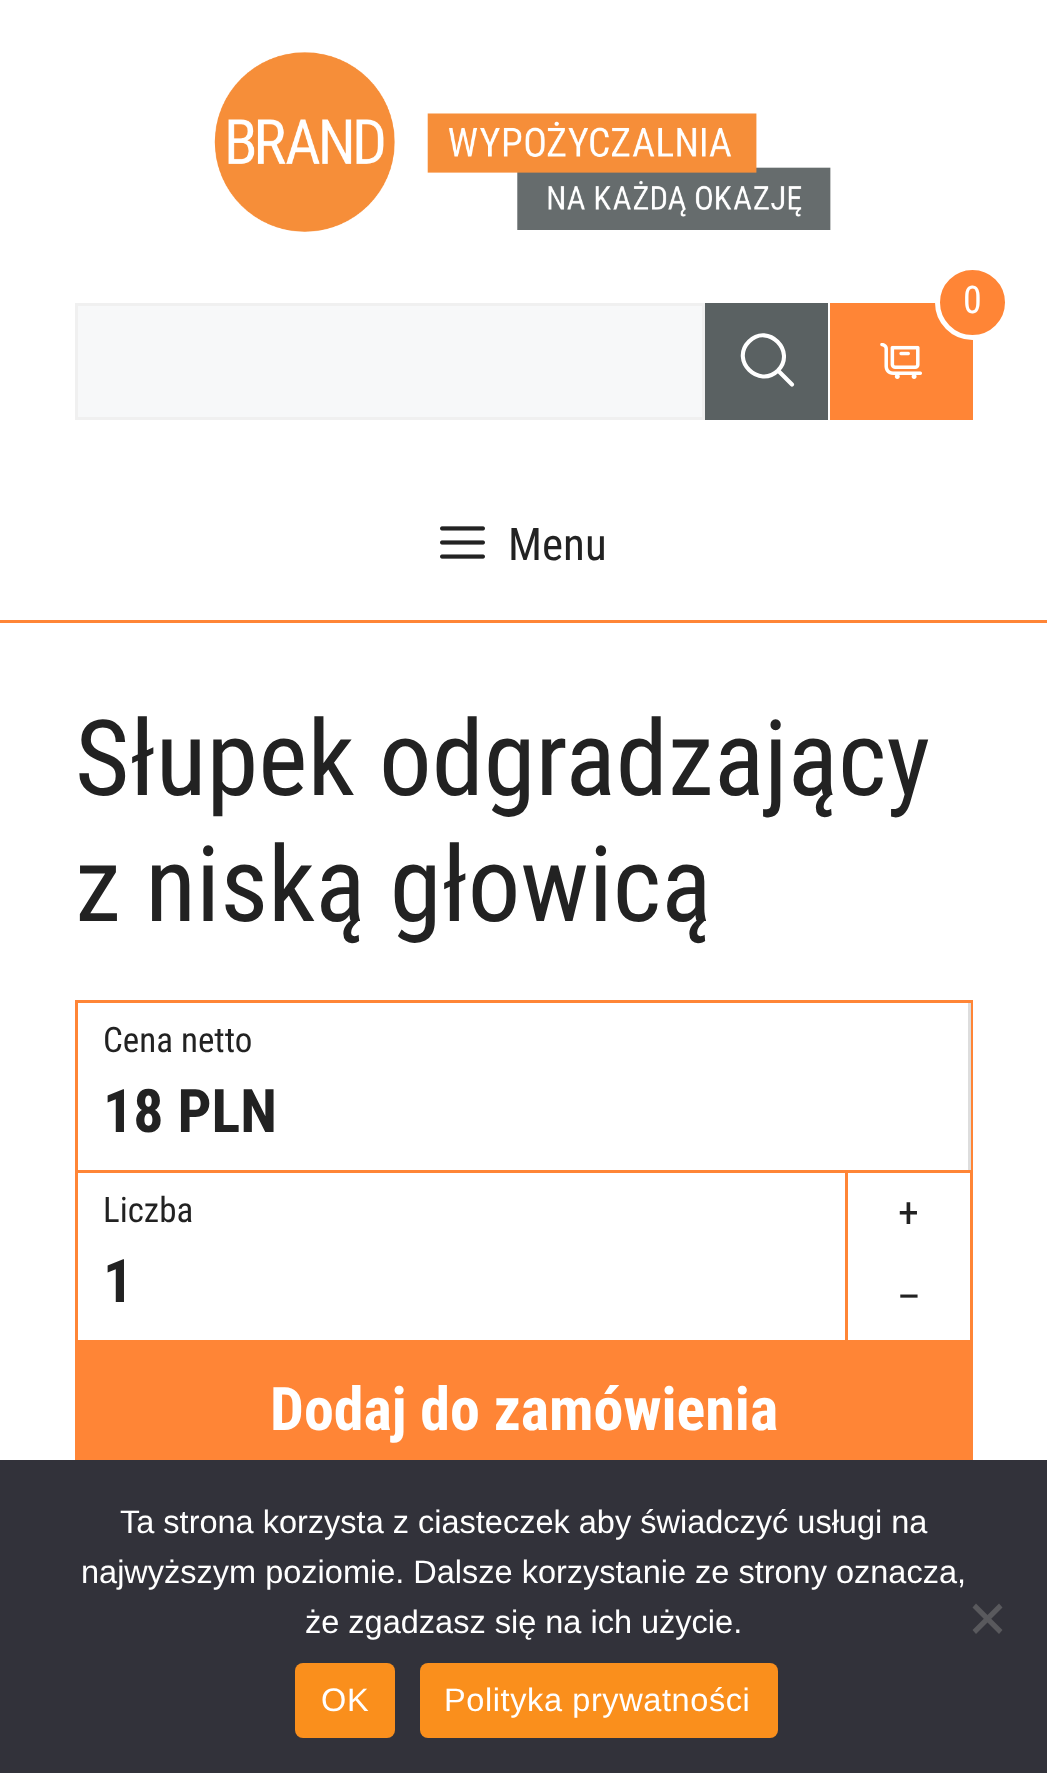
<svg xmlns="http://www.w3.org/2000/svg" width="1047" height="1773">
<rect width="100%" height="100%" fill="#fff"/>
<image x="214" y="52" width="617" height="180" href="media/1.png"/>
<rect x="830" y="303" width="143" height="117" fill="#ff8536"/>
<circle cx="972.5" cy="302.5" r="35" fill="#ff8536" stroke="#fff" stroke-width="5"/>
<text x="963" y="313" style="font-family:Roboto Condensed;font-size:38px;fill:#fff">0</text>
<image x="880" y="343" width="42" height="36" href="media/2.png"/>
<rect x="76.5" y="304.5" width="627" height="114" fill="#f7f8f9" stroke="#f0f0f0" stroke-width="3"/>
<rect x="705" y="303" width="123" height="117" fill="#5a6162"/>
<path d="M792 384.5l-14-14m0 0c18.5-19-10-48-29-29c-19 19 10 47.5 29 29z" fill="none" stroke="#fff" stroke-width="4.1" stroke-linecap="round" stroke-linejoin="round"/>
<rect y="620" width="1047" height="3" fill="#ff8536"/>
<image x="440" y="526" width="45" height="33" href="media/3.png"/>
<text x="508" y="560" style="font-family:Roboto Condensed;font-size:45px;fill:#222">Menu</text>
<text x="75" y="795" style="font-family:Roboto Condensed;font-size:105px;fill:#222">Słupek odgradzający</text>
<text x="75" y="921" style="font-family:Roboto Condensed;font-size:105px;fill:#222">z niską głowicą</text>
<rect x="76.5" y="1001.5" width="895" height="480" fill="none" stroke="#ff8536" stroke-width="3"/>
<rect x="968" y="1003" width="3" height="167" fill="#ddd"/>
<text x="103" y="1052" style="font-family:Roboto Condensed;font-size:35px;fill:#222">Cena netto</text>
<text x="103" y="1132" style="font-family:Roboto Condensed;font-size:60px;font-weight:bold;fill:#222">18 PLN</text>
<rect x="78" y="1170" width="892" height="3" fill="#ff8536"/>
<text x="103" y="1222" style="font-family:Roboto Condensed;font-size:35px;fill:#222">Liczba</text>
<rect x="845" y="1173" width="3" height="167" fill="#ff8536"/>
<text x="898" y="1227" style="font-family:Roboto Condensed;font-size:42px;fill:#222">+</text>
<text x="897" y="1311" style="font-family:Roboto Condensed;font-size:42px;fill:#222">–</text>
<text x="103" y="1302" style="font-family:Roboto Condensed;font-size:60px;font-weight:bold;fill:#222">1</text>
<rect x="78" y="1340" width="892" height="120" fill="#ff8536"/>
<text x="270" y="1430" style="font-family:Roboto Condensed;font-size:60px;font-weight:bold;fill:#fff">Dodaj do zamówienia</text>
<rect y="1460" width="1047" height="313" fill="#32323a"/>
<text x="120" y="1533" style="font-family:Liberation Sans;font-size:32.5px;fill:#fff">Ta strona korzysta z ciasteczek aby świadczyć usługi na</text>
<text x="81" y="1583" style="font-family:Liberation Sans;font-size:32.5px;fill:#fff">najwyższym poziomie. Dalsze korzystanie ze strony oznacza,</text>
<text x="305" y="1633" style="font-family:Liberation Sans;font-size:32.5px;fill:#fff">że zgadzasz się na ich użycie.</text>
<path d="M999 1603.5l3.5 4l-26.5 26.5l-3.5-4z" fill="#59595d"/>
<path d="M972.5 1607.5l3.5-4l26.5 26.5l-3.5 4z" fill="#59595d"/>
<rect x="295" y="1663" width="100" height="75" rx="8" fill="#fa8f1c"/>
<text x="321" y="1711" style="font-family:Liberation Sans;font-size:32.5px;letter-spacing:0.6px;fill:#fff">OK</text>
<rect x="420" y="1663" width="358" height="75" rx="8" fill="#fa8f1c"/>
<text x="444" y="1711" style="font-family:Liberation Sans;font-size:32.5px;letter-spacing:0.6px;fill:#fff">Polityka prywatności</text>
</svg>
